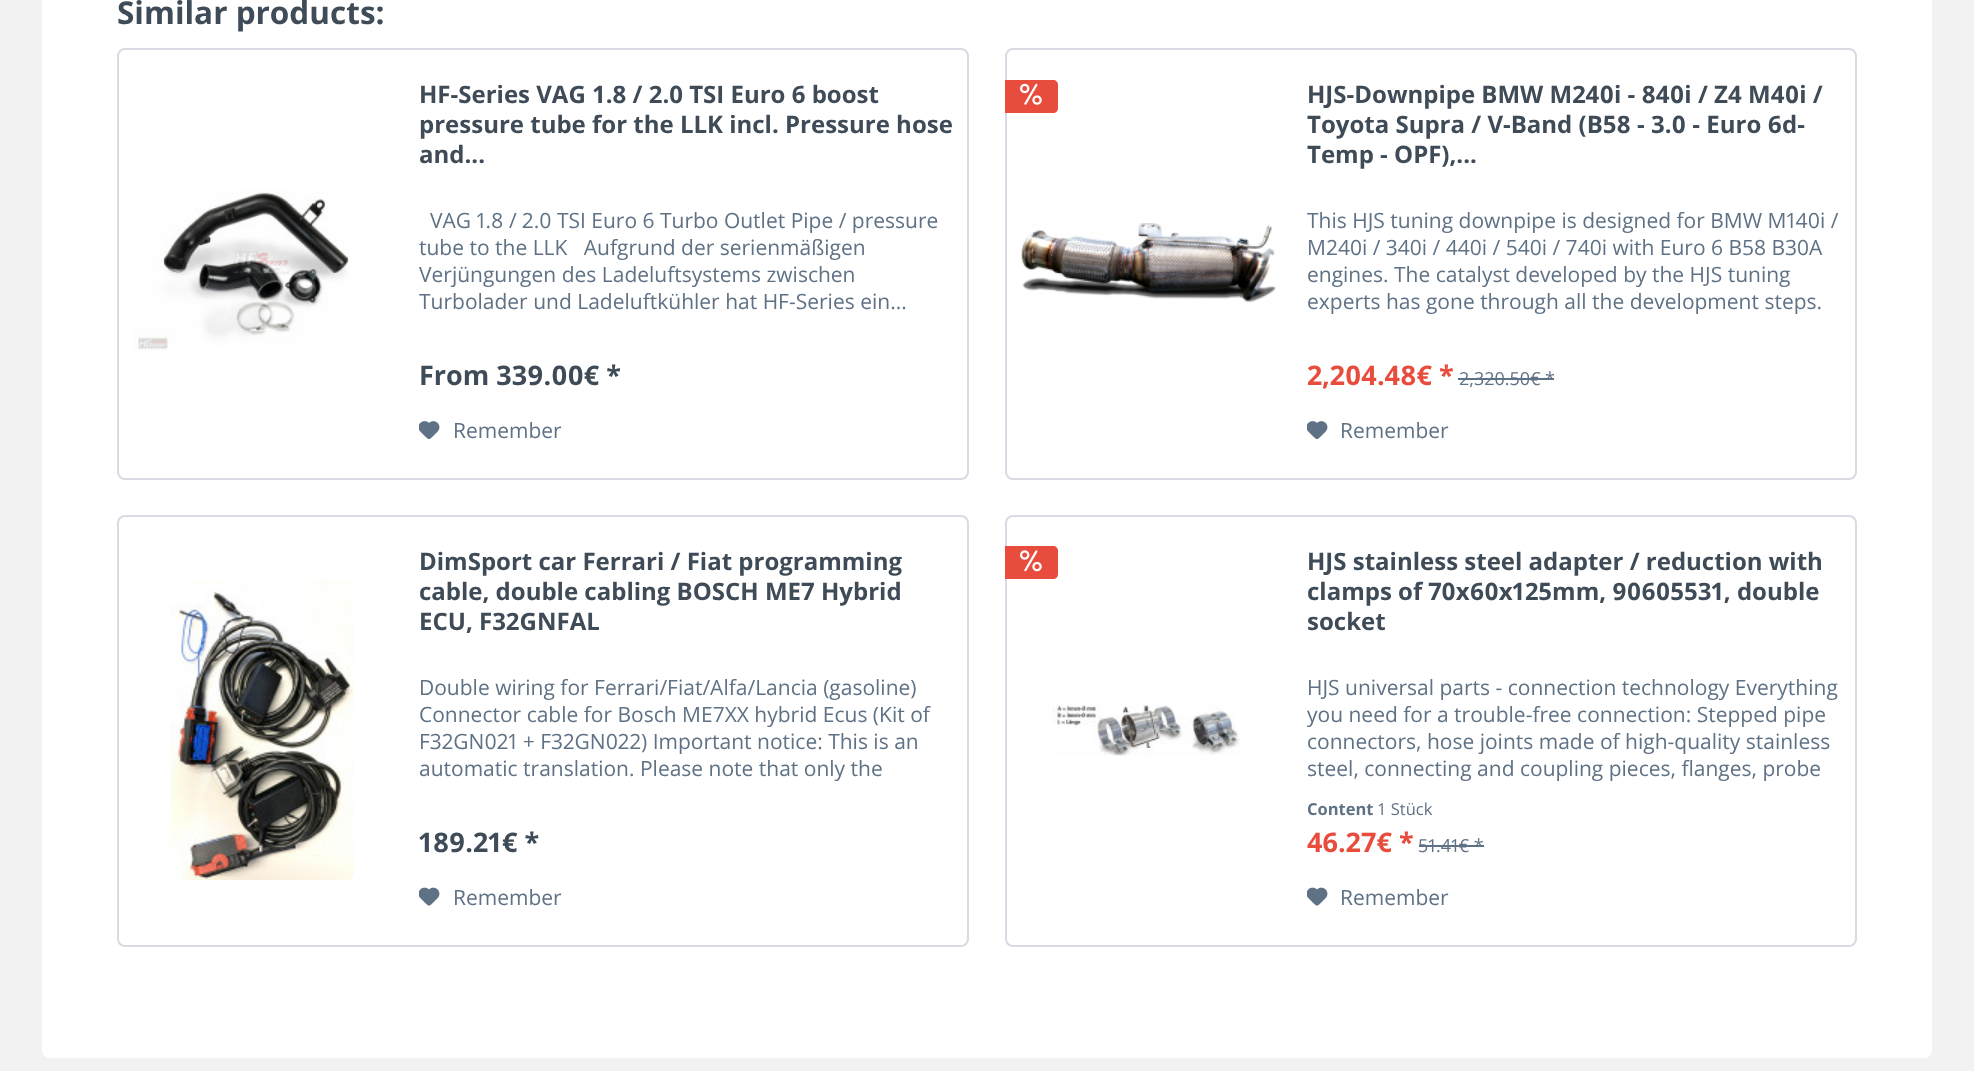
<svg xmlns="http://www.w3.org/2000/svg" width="1974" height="1071">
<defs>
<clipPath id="clip1"><rect x="1307" y="674" width="534" height="108"/></clipPath>
</defs>
<rect width="100%" height="100%" fill="#f2f2f2"/>
<path d="M42-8h1890v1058c0 4.5-3.5 8-8 8h-1874c-4.5 0-8-3.5-8-8z" fill="#fff"/>
<text x="117" y="24" style="font-family:Open Sans;font-size:31.5px;font-weight:bold;fill:#3f4c58">Similar products:</text>
<rect x="118" y="49" width="850" height="430" rx="7" fill="none" stroke="#dadae5" stroke-width="2"/>
<text x="419" y="103" style="font-family:Open Sans;font-size:24px;font-weight:bold;fill:#3f4c58">HF-Series VAG 1.8 / 2.0 TSI Euro 6 boost</text>
<text x="419" y="133" style="font-family:Open Sans;font-size:24px;font-weight:bold;fill:#3f4c58">pressure tube for the LLK incl. Pressure hose</text>
<text x="419" y="163" style="font-family:Open Sans;font-size:24px;font-weight:bold;fill:#3f4c58">and...</text>
<image x="134" y="188" width="216" height="162" href="media/1.png"/>
<text x="430" y="228" style="font-family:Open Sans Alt;font-size:21px;fill:#5f7285">VAG 1.8 / 2.0 TSI Euro 6 Turbo Outlet Pipe / pressure</text>
<text x="419" y="255" style="font-family:Open Sans;font-size:21px;fill:#5f7285" xml:space="preserve">tube to the LLK   Aufgrund der serienmäßigen</text>
<text x="419" y="282" style="font-family:Open Sans;font-size:21px;fill:#5f7285">Verjüngungen des Ladeluftsystems zwischen</text>
<text x="419" y="309" style="font-family:Open Sans;font-size:21px;fill:#5f7285">Turbolader und Ladeluftkühler hat HF-Series ein...</text>
<text x="419" y="385" style="font-family:Open Sans Alt;font-size:27px;font-weight:bold;fill:#3f4c58">From 339.00€ *</text>
<image x="419" y="421" width="21" height="19" href="media/2.png"/>
<text x="453" y="438" style="font-family:Open Sans;font-size:21px;fill:#5f7285">Remember</text>
<rect x="1006" y="49" width="850" height="430" rx="7" fill="none" stroke="#dadae5" stroke-width="2"/>
<path d="M1005 80h48c3 0 5 2 5 5v23c0 3-2 5-5 5h-48z" fill="#e74c3c"/>
<image x="1020" y="83" width="22" height="22" href="media/3.png"/>
<text x="1307" y="103" style="font-family:Open Sans Alt;font-size:24px;font-weight:bold;fill:#3f4c58">HJS-Downpipe BMW M240i - 840i / Z4 M40i /</text>
<text x="1307" y="133" style="font-family:Open Sans Alt;font-size:24px;font-weight:bold;fill:#3f4c58">Toyota Supra / V-Band (B58 - 3.0 - Euro 6d-</text>
<text x="1307" y="163" style="font-family:Open Sans;font-size:24px;font-weight:bold;fill:#3f4c58">Temp - OPF),...</text>
<image x="1021" y="223" width="255" height="80" href="media/4.png"/>
<text x="1307" y="228" style="font-family:Open Sans Alt;font-size:21px;fill:#5f7285">This HJS tuning downpipe is designed for BMW M140i /</text>
<text x="1307" y="255" style="font-family:Open Sans;font-size:21px;fill:#5f7285">M240i / 340i / 440i / 540i / 740i with Euro 6 B58 B30A</text>
<text x="1307" y="282" style="font-family:Open Sans;font-size:21px;fill:#5f7285">engines. The catalyst developed by the HJS tuning</text>
<text x="1307" y="309" style="font-family:Open Sans;font-size:21px;fill:#5f7285">experts has gone through all the development steps.</text>
<text x="1307" y="385" style="font-family:Open Sans Alt;font-size:27px;font-weight:bold;fill:#e74c3c">2,204.48€ *</text>
<text x="1459" y="385" style="font-family:Open Sans;font-size:18px;fill:#5f7285">2,320.50€ *</text>
<rect x="1458" y="378" width="96" height="2" fill="#5f7285"/>
<image x="1307" y="421" width="21" height="19" href="media/2.png"/>
<text x="1340" y="438" style="font-family:Open Sans;font-size:21px;fill:#5f7285">Remember</text>
<rect x="118" y="516" width="850" height="430" rx="7" fill="none" stroke="#dadae5" stroke-width="2"/>
<image x="170" y="580" width="184" height="300" href="media/5.png"/>
<text x="419" y="570" style="font-family:Open Sans;font-size:24px;font-weight:bold;fill:#3f4c58">DimSport car Ferrari / Fiat programming</text>
<text x="419" y="600" style="font-family:Open Sans;font-size:24px;font-weight:bold;fill:#3f4c58">cable, double cabling BOSCH ME7 Hybrid</text>
<text x="419" y="630" style="font-family:Open Sans;font-size:24px;font-weight:bold;fill:#3f4c58">ECU, F32GNFAL</text>
<text x="419" y="695" style="font-family:Open Sans;font-size:21px;fill:#5f7285">Double wiring for Ferrari/Fiat/Alfa/Lancia (gasoline)</text>
<text x="419" y="722" style="font-family:Open Sans;font-size:21px;fill:#5f7285">Connector cable for Bosch ME7XX hybrid Ecus (Kit of</text>
<text x="419" y="749" style="font-family:Open Sans Alt;font-size:21px;fill:#5f7285">F32GN021 + F32GN022) Important notice: This is an</text>
<text x="419" y="776" style="font-family:Open Sans;font-size:21px;fill:#5f7285">automatic translation. Please note that only the</text>
<text x="419" y="852" style="font-family:Open Sans Alt;font-size:27px;font-weight:bold;fill:#3f4c58">189.21€ *</text>
<image x="419" y="887" width="21" height="19" href="media/6.png"/>
<text x="453" y="905" style="font-family:Open Sans;font-size:21px;fill:#5f7285">Remember</text>
<rect x="1006" y="516" width="850" height="430" rx="7" fill="none" stroke="#dadae5" stroke-width="2"/>
<path d="M1005 546h48c3 0 5 2 5 5v23c0 3-2 5-5 5h-48z" fill="#e74c3c"/>
<image x="1020" y="550" width="22" height="22" href="media/7.png"/>
<text x="1307" y="570" style="font-family:Open Sans;font-size:24px;font-weight:bold;fill:#3f4c58">HJS stainless steel adapter / reduction with</text>
<text x="1307" y="600" style="font-family:Open Sans Alt;font-size:24px;font-weight:bold;fill:#3f4c58">clamps of 70x60x125mm, 90605531, double</text>
<text x="1307" y="630" style="font-family:Open Sans;font-size:24px;font-weight:bold;fill:#3f4c58">socket</text>
<image x="1052" y="705" width="188" height="51" href="media/8.png"/>
<text x="1307" y="695" style="font-family:Open Sans;font-size:21px;fill:#5f7285">HJS universal parts - connection technology Everything</text>
<g clip-path="url(#clip1)">
<text x="1307" y="722" style="font-family:Open Sans;font-size:21px;fill:#5f7285">you need for a trouble-free connection: Stepped pipe</text>
</g>
<text x="1307" y="749" style="font-family:Open Sans;font-size:21px;fill:#5f7285">connectors, hose joints made of high-quality stainless</text>
<text x="1307" y="776" style="font-family:Open Sans;font-size:21px;fill:#5f7285">steel, connecting and coupling pieces, flanges, probe</text>
<text x="1307" y="815" style="font-family:Open Sans;font-size:16.5px;font-weight:bold;fill:#5f7285">Content</text>
<text x="1377" y="815" style="font-family:Open Sans;font-size:16.5px;fill:#5f7285">1 Stück</text>
<text x="1307" y="852" style="font-family:Open Sans;font-size:27px;font-weight:bold;fill:#e74c3c">46.27€ *</text>
<text x="1418" y="852" style="font-family:Open Sans Alt;font-size:18px;fill:#5f7285">51.41€ *</text>
<rect x="1419" y="845" width="65" height="2" fill="#5f7285"/>
<image x="1307" y="887" width="21" height="19" href="media/6.png"/>
<text x="1340" y="905" style="font-family:Open Sans;font-size:21px;fill:#5f7285">Remember</text>
</svg>
